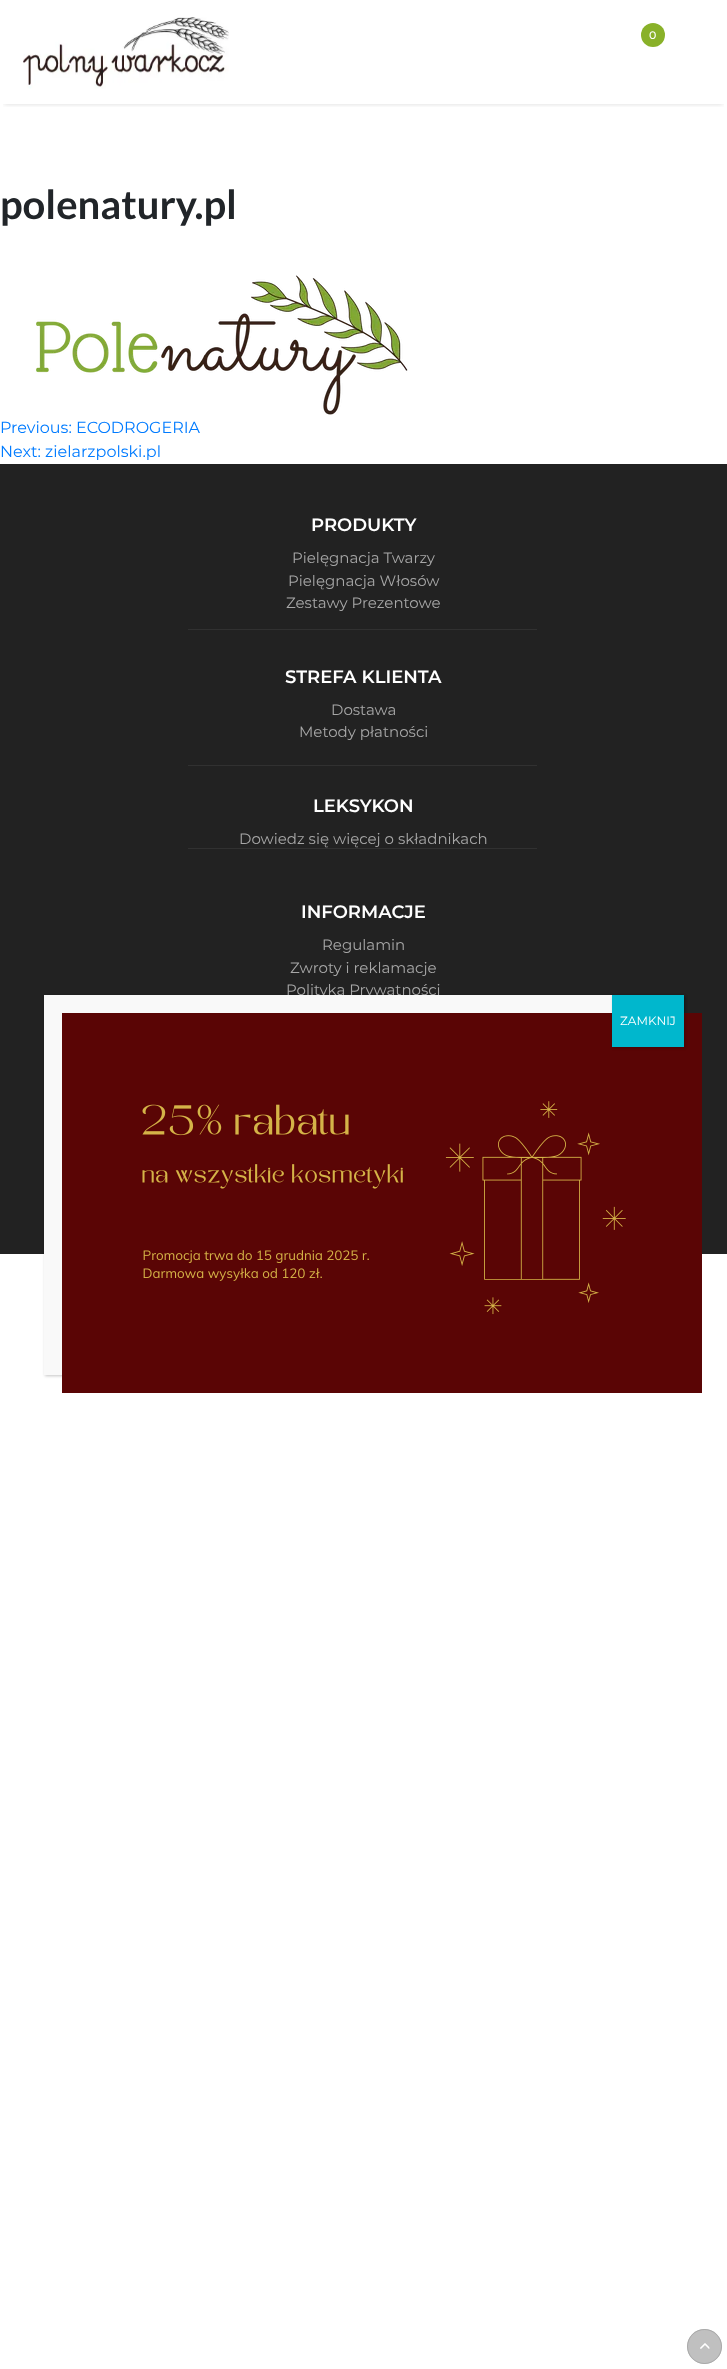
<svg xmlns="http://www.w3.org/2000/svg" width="727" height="2369">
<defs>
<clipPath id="clip1"><rect x="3" y="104" width="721" height="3"/></clipPath>
</defs>
<rect width="100%" height="100%" fill="#fff"/>
<g clip-path="url(#clip1)">
<rect x="4" y="8" width="719" height="96" fill="#00000026" filter="blur(2.5px)"/>
</g>
<image x="23" y="17" width="206" height="72" href="media/1.png"/>
<circle cx="653" cy="35" r="12" fill="#89b129"/>
<text x="649" y="39" style="font-family:Montserrat;font-size:11px;font-weight:500;fill:#fff">0</text>
<text x="0" y="219" style="font-family:Lato;font-size:40px;font-weight:bold;fill:#212529">polenatury.pl</text>
<image x="36" y="275" width="372" height="140" href="media/2.png"/>
<text x="0" y="433" style="font-family:Montserrat;font-size:16px;fill:#007bff">Previous: ECODROGERIA</text>
<text x="0" y="457" style="font-family:Montserrat;font-size:16px;fill:#007bff">Next: zielarzpolski.pl</text>
<rect y="464" width="727" height="790" fill="#222"/>
<text x="311" y="531" style="font-family:Montserrat;font-size:18px;font-weight:600;fill:#fff">PRODUKTY</text>
<text x="292" y="563" style="font-family:Montserrat;font-size:15px;fill:#a7a7a7">Pielęgnacja Twarzy</text>
<text x="288" y="586" style="font-family:Montserrat;font-size:15px;fill:#a7a7a7">Pielęgnacja Włosów</text>
<text x="286" y="608" style="font-family:Montserrat;font-size:15px;fill:#a7a7a7">Zestawy Prezentowe</text>
<rect x="188" y="629" width="349" height="1" fill="#313131"/>
<text x="285" y="683" style="font-family:Montserrat;font-size:18px;font-weight:600;fill:#fff">STREFA KLIENTA</text>
<text x="331" y="715" style="font-family:Montserrat;font-size:15px;fill:#a7a7a7">Dostawa</text>
<text x="299" y="737" style="font-family:Montserrat;font-size:15px;fill:#a7a7a7">Metody płatności</text>
<rect x="188" y="765" width="349" height="1" fill="#313131"/>
<text x="313" y="812" style="font-family:Montserrat;font-size:18px;font-weight:600;fill:#fff">LEKSYKON</text>
<text x="239" y="844" style="font-family:Montserrat;font-size:15px;fill:#a7a7a7">Dowiedz się więcej o składnikach</text>
<rect x="188" y="848" width="349" height="1" fill="#313131"/>
<text x="301" y="918" style="font-family:Montserrat;font-size:18px;font-weight:600;fill:#fff">INFORMACJE</text>
<text x="322" y="950" style="font-family:Montserrat;font-size:15px;fill:#a7a7a7">Regulamin</text>
<text x="290" y="973" style="font-family:Montserrat;font-size:15px;fill:#a7a7a7">Zwroty i reklamacje</text>
<text x="286" y="995" style="font-family:Montserrat;font-size:15px;fill:#a7a7a7">Polityka Prywatności</text>
<circle cx="704.5" cy="2346.5" r="17.5" fill="#c0c0c0"/>
<circle cx="704.5" cy="2346.5" r="17" fill="none" stroke="#96969691"/>
<image x="700" y="2343" width="10" height="6" href="media/3.png"/>
<rect x="45" y="996" width="640" height="380" fill="#0202023b" filter="blur(1.5px)"/>
<rect x="44" y="995" width="568" height="380" fill="#f9f9f9"/>
<image x="62" y="1013" width="640" height="380" href="media/4.png"/>
<rect x="613" y="996" width="72" height="52" fill="#0202023b" filter="blur(1.5px)"/>
<rect x="612" y="995" width="72" height="52" fill="#00b7cd"/>
<text x="620" y="1025" style="font-family:Montserrat;font-size:12px;fill:#fff">ZAMKNIJ</text>
</svg>
